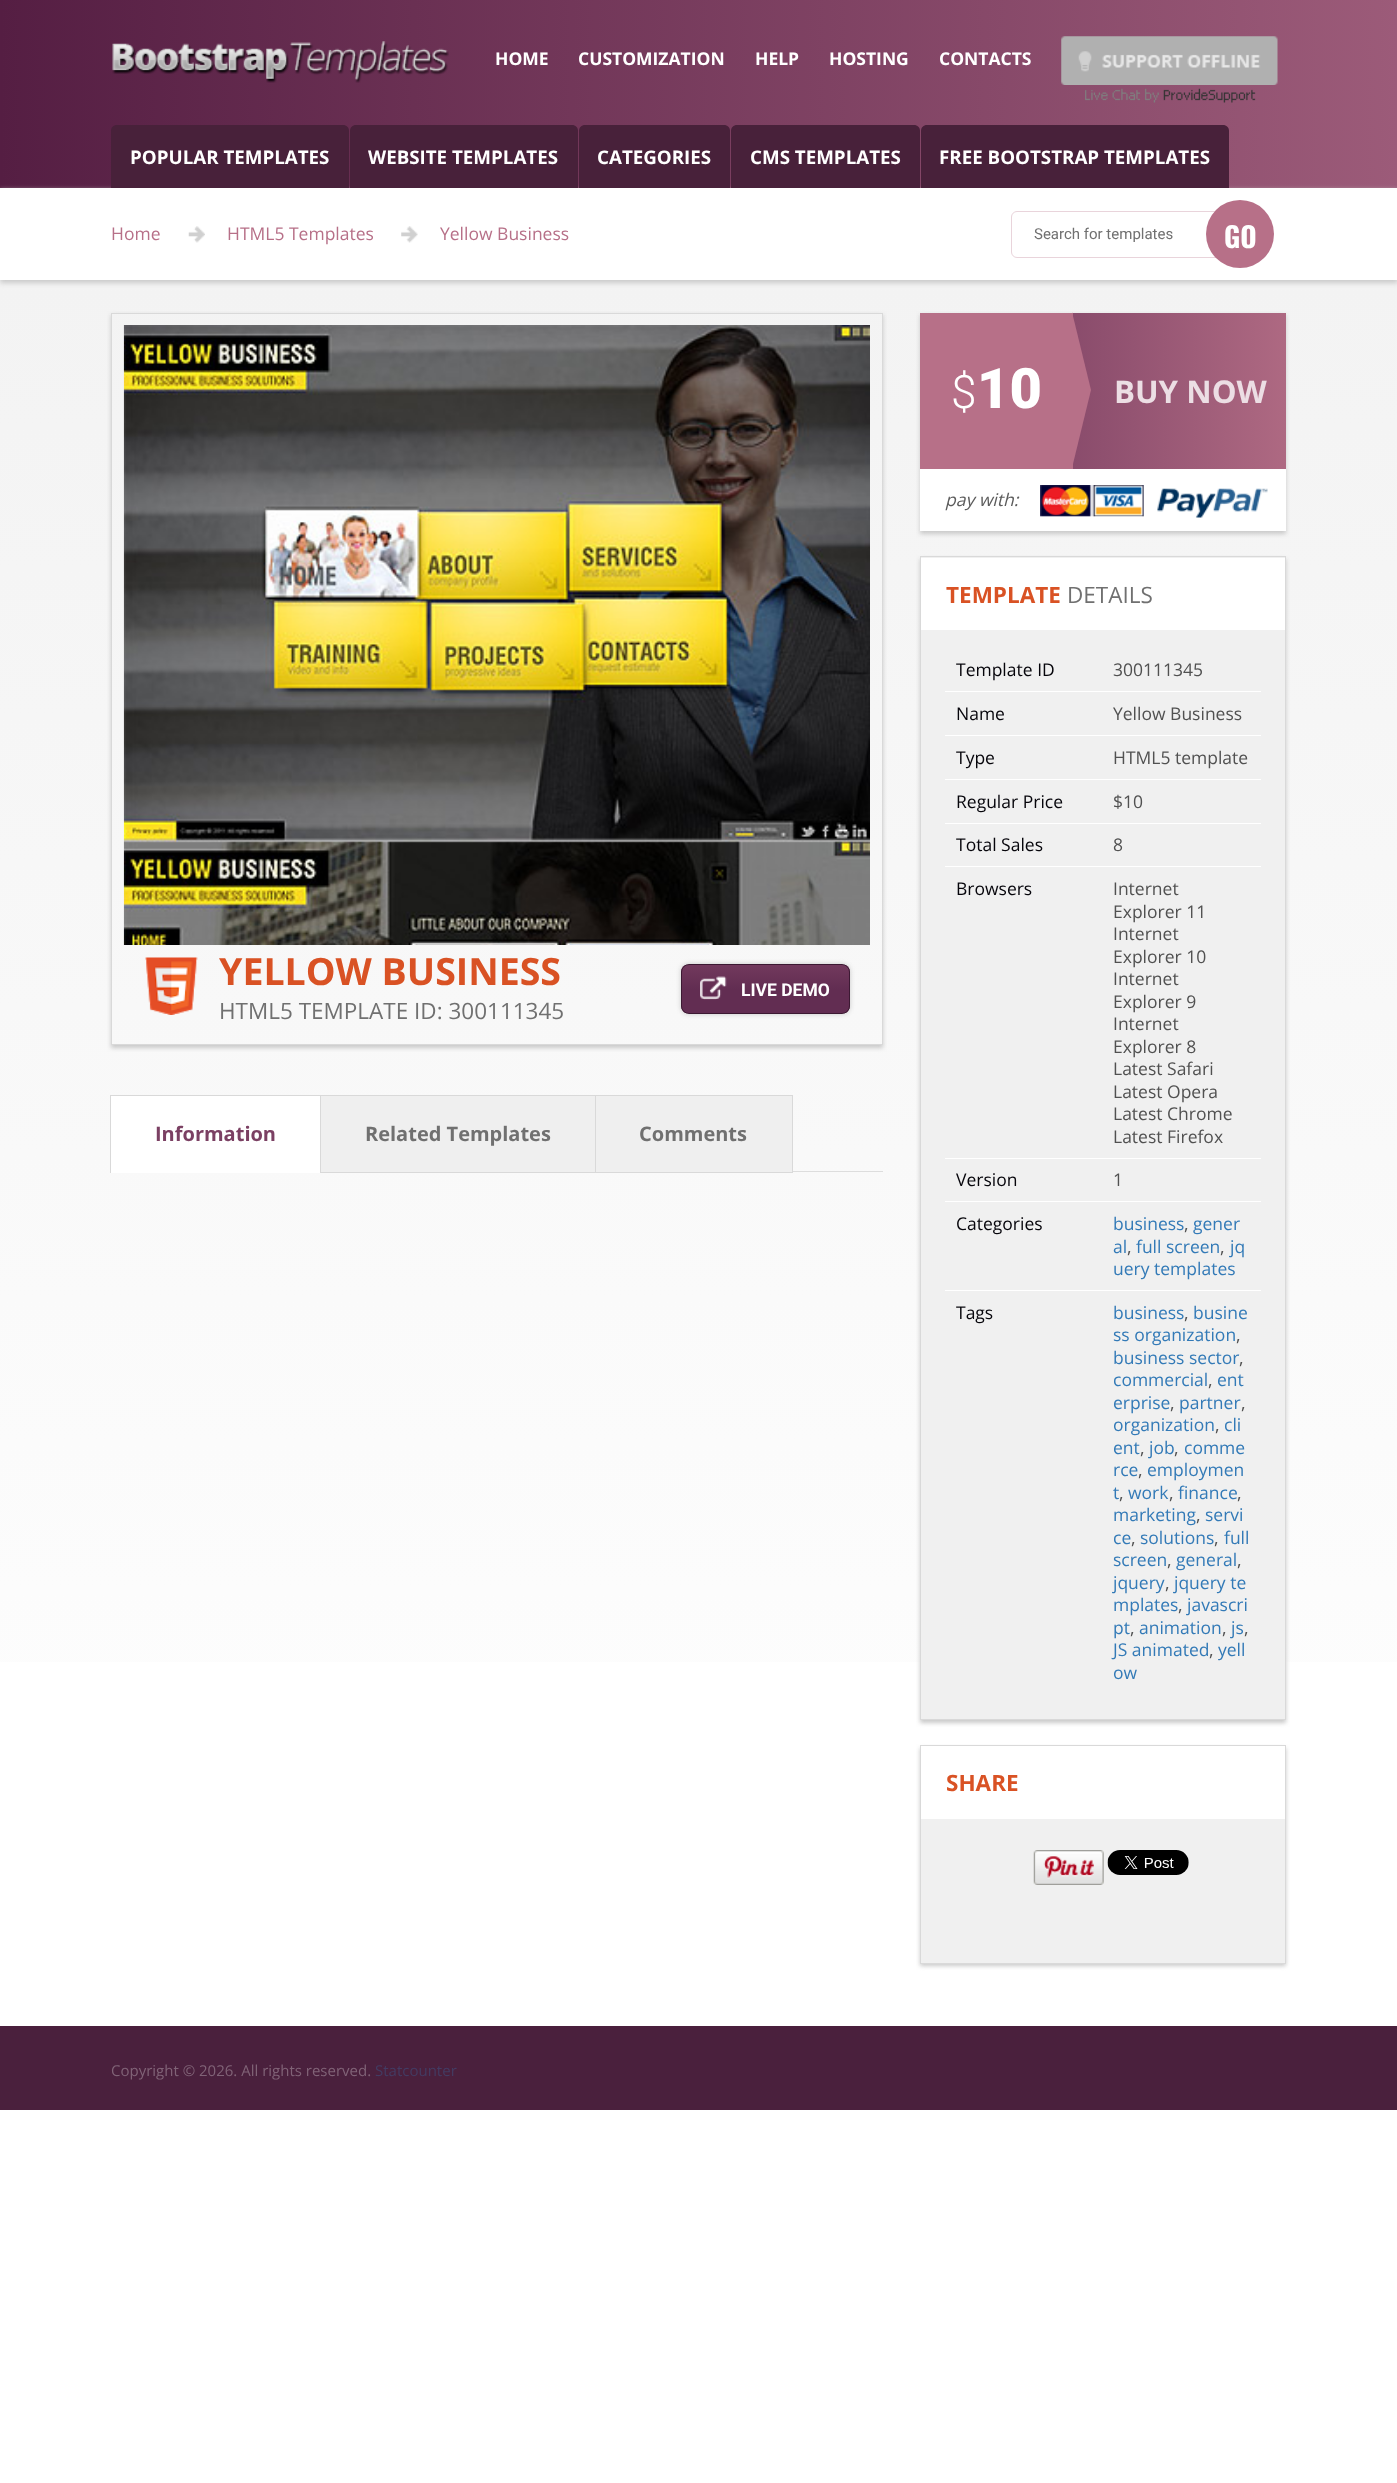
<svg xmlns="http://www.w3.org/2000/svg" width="1397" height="2483">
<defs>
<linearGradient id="g1" gradientUnits="userSpaceOnUse" x1="0" y1="94" x2="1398" y2="94"><stop offset="0" stop-color="#551e43"/><stop offset="1" stop-color="#9c5b79"/></linearGradient>
<linearGradient id="g2" gradientUnits="userSpaceOnUse" x1="699" y1="280" x2="699" y2="2026"><stop offset="0" stop-color="#f3f3f3"/><stop offset="1" stop-color="#fff"/></linearGradient>
<clipPath id="clip1"><path d="M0 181h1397v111h-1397zm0 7h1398v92h-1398z" clip-rule="evenodd"/></clipPath>
<clipPath id="clip2"><path d="M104 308h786v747h-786zm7 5h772v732h-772z" clip-rule="evenodd"/></clipPath>
<clipPath id="clip3"><rect x="681" y="964" width="169" height="50" rx="8"/></clipPath>
<linearGradient id="g3" gradientUnits="userSpaceOnUse" x1="766" y1="965" x2="766" y2="1013"><stop offset="0" stop-color="#72395d"/><stop offset="0.5" stop-color="#622d52"/></linearGradient>
<linearGradient id="g4" gradientUnits="userSpaceOnUse" x1="920" y1="422" x2="1286" y2="422"><stop offset="0" stop-color="#70375c"/><stop offset="1" stop-color="#ae6982"/></linearGradient>
</defs>
<rect width="100%" height="100%" fill="#fff"/>
<rect width="1397" height="188" fill="url(#g1)"/>
<image x="112" y="41" width="337" height="42" href="media/1.png"/>
<text x="495" y="65" style="font-family:Open Sans;font-size:17.5px;font-weight:bold;fill:#fff">HOME</text>
<text x="578" y="65" style="font-family:Open Sans;font-size:17.5px;font-weight:bold;fill:#fff">CUSTOMIZATION</text>
<text x="755" y="65" style="font-family:Open Sans;font-size:17.5px;font-weight:bold;fill:#fff">HELP</text>
<text x="829" y="65" style="font-family:Open Sans;font-size:17.5px;font-weight:bold;fill:#fff">HOSTING</text>
<text x="939" y="65" style="font-family:Open Sans;font-size:17.5px;font-weight:bold;fill:#fff">CONTACTS</text>
<image x="1061" y="36" width="217" height="49" href="media/2.png"/>
<image x="1085" y="88" width="171" height="15" href="media/3.png"/>
<rect y="280" width="1397" height="1382" fill="url(#g2)"/>
<g clip-path="url(#clip1)">
<rect y="190" width="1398" height="93" fill="#c9c9c9" filter="blur(2.5px)"/>
</g>
<path d="M117 125h226c3.5 0 6 2.5 6 6v57h-238v-57c0-3.5 2.5-6 6-6z" fill="#48213a"/>
<text x="130" y="164" style="font-family:Open Sans;font-size:18.75px;font-weight:bold;fill:#fff">POPULAR TEMPLATES</text>
<path d="M356 125h216c3.5 0 6 2.5 6 6v57h-228v-57c0-3.5 2.5-6 6-6z" fill="#48213a"/>
<text x="368" y="164" style="font-family:Open Sans;font-size:18.75px;font-weight:bold;fill:#fff">WEBSITE TEMPLATES</text>
<path d="M585 125h139c3.5 0 6 2.5 6 6v57h-151v-57c0-3.5 2.5-6 6-6z" fill="#48213a"/>
<text x="597" y="164" style="font-family:Open Sans;font-size:18.75px;font-weight:bold;fill:#fff">CATEGORIES</text>
<path d="M737 125h177c3.5 0 6 2.5 6 6v57h-189v-57c0-3.5 2.5-6 6-6z" fill="#48213a"/>
<text x="750" y="164" style="font-family:Open Sans;font-size:18.75px;font-weight:bold;fill:#fff">CMS TEMPLATES</text>
<path d="M927 125h296c3.5 0 6 2.5 6 6v57h-308v-57c0-3.5 2.5-6 6-6z" fill="#48213a"/>
<text x="939" y="164" style="font-family:Open Sans;font-size:18.75px;font-weight:bold;fill:#fff">FREE BOOTSTRAP TEMPLATES</text>
<image x="188" y="226" width="17" height="17" href="media/4.png"/>
<text x="111" y="240" style="font-family:Open Sans;font-size:17.5px;fill:#b77088">Home</text>
<image x="401" y="226" width="17" height="17" href="media/5.png"/>
<text x="227" y="240" style="font-family:Open Sans;font-size:17.5px;fill:#b77088">HTML5 Templates</text>
<text x="440" y="240" style="font-family:Open Sans;font-size:17.5px;fill:#b77088">Yellow Business</text>
<rect x="1011.5" y="211.5" width="244" height="46" rx="5.5" fill="none" stroke="#e9d4db"/>
<text x="1034" y="239" style="font-family:Roboto;font-size:15px;fill:#707070">Search for templates</text>
<circle cx="1240" cy="234" r="34" fill="#b77088"/>
<text x="1224" y="248" style="font-family:Oswald;font-size:28px;font-weight:bold;fill:#fff">GO</text>
<g clip-path="url(#clip2)">
<rect x="111" y="315" width="772" height="733" fill="#c9c9c9" filter="blur(2px)"/>
</g>
<rect x="111.5" y="313.5" width="771" height="731" fill="none" stroke="#d9d9d9"/>
<image x="123" y="325" width="747" height="620" href="media/6.png"/>
<image x="145" y="957" width="53" height="58" href="media/7.png"/>
<text x="219" y="985" style="font-family:Open Sans;font-size:37.5px;font-weight:bold;fill:#d95224">YELLOW BUSINESS</text>
<rect x="681" y="964" width="169" height="50" rx="8" fill="#c6c6c6" filter="blur(2.5px)"/>
<g clip-path="url(#clip3)">
<rect x="681" y="965" width="169" height="48" fill="url(#g3)"/>
</g>
<rect x="681.5" y="964.5" width="168" height="49" rx="7.5" fill="none" stroke="#3c1933"/>
<image x="700" y="976" width="27" height="24" href="media/8.png"/>
<text x="741" y="996" style="font-family:Roboto;font-size:17.5px;font-weight:bold;fill:#fff">LIVE DEMO</text>
<text x="219" y="1019" style="font-family:Open Sans;font-size:22.5px;fill:#707070">HTML5 TEMPLATE ID: 300111345</text>
<rect x="920" y="315" width="366" height="219" fill="#c9c9c9" filter="blur(2px)"/>
<rect x="1073" y="313" width="213" height="156" fill="url(#g4)"/>
<rect x="920" y="313" width="153" height="156" fill="#b77088"/>
<text x="951" y="408" style="font-family:Roboto;font-size:46px;font-weight:300;fill:#fff">$</text>
<text x="977" y="408" style="font-family:Roboto;font-size:56px;font-weight:900;fill:#fff">10</text>
<path d="M1072 468v-156l19 78z" fill="#b77088"/>
<text x="1114" y="403" style="font-family:Open Sans;font-size:31.25px;font-weight:bold;fill:#ecdee4">BUY NOW</text>
<rect x="920" y="469" width="366" height="62" fill="#fff"/>
<text x="945" y="506" style="font-family:Open Sans;font-size:17.5px;font-style:italic;fill:#5c5c5c">pay with:</text>
<image x="1040" y="485" width="228" height="33" href="media/9.png"/>
<rect x="920" y="559" width="366" height="1164" fill="#c9c9c9" filter="blur(2px)"/>
<rect x="920.5" y="556.5" width="365" height="1163" fill="#f0f0f0" stroke="#d9d9d9"/>
<rect x="921" y="558" width="364" height="72" fill="#fff"/>
<text x="946" y="603" style="font-family:Open Sans;font-size:22.5px;font-weight:bold;fill:#d95224">TEMPLATE</text>
<text x="1067" y="603" style="font-family:Open Sans;font-size:22.5px;fill:#707070">DETAILS</text>
<text x="956" y="676" style="font-family:Open Sans;font-size:17.5px;fill:#06050b">Template ID</text>
<text x="1113" y="676" style="font-family:Open Sans;font-size:17.5px;fill:#515151">300111345</text>
<text x="956" y="720" style="font-family:Open Sans;font-size:17.5px;fill:#06050b">Name</text>
<rect x="945" y="691" width="316" height="1" fill="#fff"/>
<text x="1113" y="720" style="font-family:Open Sans;font-size:17.5px;fill:#515151">Yellow Business</text>
<text x="956" y="764" style="font-family:Open Sans;font-size:17.5px;fill:#06050b">Type</text>
<rect x="945" y="735" width="316" height="1" fill="#fff"/>
<text x="1113" y="764" style="font-family:Open Sans;font-size:17.5px;fill:#515151">HTML5 template</text>
<text x="956" y="808" style="font-family:Open Sans;font-size:17.5px;fill:#06050b">Regular Price</text>
<rect x="945" y="779" width="316" height="1" fill="#fff"/>
<text x="1113" y="808" style="font-family:Open Sans;font-size:17.5px;fill:#515151">$10</text>
<text x="956" y="851" style="font-family:Open Sans;font-size:17.5px;fill:#06050b">Total Sales</text>
<rect x="945" y="823" width="316" height="1" fill="#fff"/>
<text x="1113" y="851" style="font-family:Open Sans;font-size:17.5px;fill:#515151">8</text>
<text x="956" y="895" style="font-family:Open Sans;font-size:17.5px;fill:#06050b">Browsers</text>
<rect x="945" y="866" width="316" height="1" fill="#fff"/>
<text x="1113" y="895" style="font-family:Open Sans;font-size:17.5px;fill:#515151">Internet</text>
<text x="1113" y="918" style="font-family:Open Sans;font-size:17.5px;fill:#515151">Explorer 11</text>
<text x="1113" y="940" style="font-family:Open Sans;font-size:17.5px;fill:#515151">Internet</text>
<text x="1113" y="963" style="font-family:Open Sans;font-size:17.5px;fill:#515151">Explorer 10</text>
<text x="1113" y="985" style="font-family:Open Sans;font-size:17.5px;fill:#515151">Internet</text>
<text x="1113" y="1008" style="font-family:Open Sans;font-size:17.5px;fill:#515151">Explorer 9</text>
<text x="1113" y="1030" style="font-family:Open Sans;font-size:17.5px;fill:#515151">Internet</text>
<text x="1113" y="1053" style="font-family:Open Sans;font-size:17.5px;fill:#515151">Explorer 8</text>
<text x="1113" y="1075" style="font-family:Open Sans;font-size:17.5px;fill:#515151">Latest Safari</text>
<text x="1113" y="1098" style="font-family:Open Sans;font-size:17.5px;fill:#515151">Latest Opera</text>
<text x="1113" y="1120" style="font-family:Open Sans;font-size:17.5px;fill:#515151">Latest Chrome</text>
<text x="1113" y="1143" style="font-family:Open Sans;font-size:17.5px;fill:#515151">Latest Firefox</text>
<text x="956" y="1186" style="font-family:Open Sans;font-size:17.5px;fill:#06050b">Version</text>
<rect x="945" y="1158" width="316" height="1" fill="#fff"/>
<text x="1113" y="1186" style="font-family:Open Sans;font-size:17.5px;fill:#515151">1</text>
<text x="956" y="1230" style="font-family:Open Sans;font-size:17.5px;fill:#06050b">Categories</text>
<rect x="945" y="1201" width="316" height="1" fill="#fff"/>
<text x="1113" y="1230" style="font-family:Open Sans;font-size:17.5px;fill:#337ab7">business</text>
<text x="1184" y="1230" style="font-family:Open Sans;font-size:17.5px;fill:#515151">,</text>
<text x="1193" y="1230" style="font-family:Open Sans;font-size:17.5px;fill:#337ab7">gener</text>
<text x="1113" y="1253" style="font-family:Open Sans;font-size:17.5px;fill:#337ab7">al</text>
<text x="1127" y="1253" style="font-family:Open Sans;font-size:17.5px;fill:#515151">,</text>
<text x="1136" y="1253" style="font-family:Open Sans;font-size:17.5px;fill:#337ab7">full screen</text>
<text x="1220" y="1253" style="font-family:Open Sans;font-size:17.5px;fill:#515151">,</text>
<text x="1230" y="1253" style="font-family:Open Sans;font-size:17.5px;fill:#337ab7">jq</text>
<text x="1113" y="1275" style="font-family:Open Sans;font-size:17.5px;fill:#337ab7">uery templates</text>
<text x="956" y="1319" style="font-family:Open Sans;font-size:17.5px;fill:#06050b">Tags</text>
<rect x="945" y="1290" width="316" height="1" fill="#fff"/>
<text x="1113" y="1319" style="font-family:Open Sans;font-size:17.5px;fill:#337ab7">business</text>
<text x="1184" y="1319" style="font-family:Open Sans;font-size:17.5px;fill:#515151">,</text>
<text x="1193" y="1319" style="font-family:Open Sans;font-size:17.5px;fill:#337ab7">busine</text>
<text x="1113" y="1341" style="font-family:Open Sans;font-size:17.5px;fill:#337ab7">ss organization</text>
<text x="1236" y="1341" style="font-family:Open Sans;font-size:17.5px;fill:#515151">,</text>
<text x="1113" y="1364" style="font-family:Open Sans;font-size:17.5px;fill:#337ab7">business sector</text>
<text x="1239" y="1364" style="font-family:Open Sans;font-size:17.5px;fill:#515151">,</text>
<text x="1113" y="1386" style="font-family:Open Sans;font-size:17.5px;fill:#337ab7">commercial</text>
<text x="1208" y="1386" style="font-family:Open Sans;font-size:17.5px;fill:#515151">,</text>
<text x="1217" y="1386" style="font-family:Open Sans;font-size:17.5px;fill:#337ab7">ent</text>
<text x="1113" y="1409" style="font-family:Open Sans;font-size:17.5px;fill:#337ab7">erprise</text>
<text x="1170" y="1409" style="font-family:Open Sans;font-size:17.5px;fill:#515151">,</text>
<text x="1179" y="1409" style="font-family:Open Sans;font-size:17.5px;fill:#337ab7">partner</text>
<text x="1241" y="1409" style="font-family:Open Sans;font-size:17.5px;fill:#515151">,</text>
<text x="1113" y="1431" style="font-family:Open Sans;font-size:17.5px;fill:#337ab7">organization</text>
<text x="1215" y="1431" style="font-family:Open Sans;font-size:17.5px;fill:#515151">,</text>
<text x="1224" y="1431" style="font-family:Open Sans;font-size:17.5px;fill:#337ab7">cli</text>
<text x="1113" y="1454" style="font-family:Open Sans;font-size:17.5px;fill:#337ab7">ent</text>
<text x="1140" y="1454" style="font-family:Open Sans;font-size:17.5px;fill:#515151">,</text>
<text x="1149" y="1454" style="font-family:Open Sans;font-size:17.5px;fill:#337ab7">job</text>
<text x="1174" y="1454" style="font-family:Open Sans;font-size:17.5px;fill:#515151">,</text>
<text x="1184" y="1454" style="font-family:Open Sans;font-size:17.5px;fill:#337ab7">comme</text>
<text x="1113" y="1476" style="font-family:Open Sans;font-size:17.5px;fill:#337ab7">rce</text>
<text x="1138" y="1476" style="font-family:Open Sans;font-size:17.5px;fill:#515151">,</text>
<text x="1147" y="1476" style="font-family:Open Sans;font-size:17.5px;fill:#337ab7">employmen</text>
<text x="1113" y="1499" style="font-family:Open Sans;font-size:17.5px;fill:#337ab7">t</text>
<text x="1119" y="1499" style="font-family:Open Sans;font-size:17.5px;fill:#515151">,</text>
<text x="1128" y="1499" style="font-family:Open Sans;font-size:17.5px;fill:#337ab7">work</text>
<text x="1169" y="1499" style="font-family:Open Sans;font-size:17.5px;fill:#515151">,</text>
<text x="1178" y="1499" style="font-family:Open Sans;font-size:17.5px;fill:#337ab7">finance</text>
<text x="1237" y="1499" style="font-family:Open Sans;font-size:17.5px;fill:#515151">,</text>
<text x="1113" y="1521" style="font-family:Open Sans;font-size:17.5px;fill:#337ab7">marketing</text>
<text x="1196" y="1521" style="font-family:Open Sans;font-size:17.5px;fill:#515151">,</text>
<text x="1205" y="1521" style="font-family:Open Sans;font-size:17.5px;fill:#337ab7">servi</text>
<text x="1113" y="1544" style="font-family:Open Sans;font-size:17.5px;fill:#337ab7">ce</text>
<text x="1131" y="1544" style="font-family:Open Sans;font-size:17.5px;fill:#515151">,</text>
<text x="1140" y="1544" style="font-family:Open Sans;font-size:17.5px;fill:#337ab7">solutions</text>
<text x="1214" y="1544" style="font-family:Open Sans;font-size:17.5px;fill:#515151">,</text>
<text x="1224" y="1544" style="font-family:Open Sans;font-size:17.5px;fill:#337ab7">full</text>
<text x="1113" y="1566" style="font-family:Open Sans;font-size:17.5px;fill:#337ab7">screen</text>
<text x="1167" y="1566" style="font-family:Open Sans;font-size:17.5px;fill:#515151">,</text>
<text x="1176" y="1566" style="font-family:Open Sans;font-size:17.5px;fill:#337ab7">general</text>
<text x="1237" y="1566" style="font-family:Open Sans;font-size:17.5px;fill:#515151">,</text>
<text x="1113" y="1589" style="font-family:Open Sans;font-size:17.5px;fill:#337ab7">jquery</text>
<text x="1165" y="1589" style="font-family:Open Sans;font-size:17.5px;fill:#515151">,</text>
<text x="1174" y="1589" style="font-family:Open Sans;font-size:17.5px;fill:#337ab7">jquery te</text>
<text x="1113" y="1611" style="font-family:Open Sans;font-size:17.5px;fill:#337ab7">mplates</text>
<text x="1178" y="1611" style="font-family:Open Sans;font-size:17.5px;fill:#515151">,</text>
<text x="1187" y="1611" style="font-family:Open Sans;font-size:17.5px;fill:#337ab7">javascri</text>
<text x="1113" y="1634" style="font-family:Open Sans;font-size:17.5px;fill:#337ab7">pt</text>
<text x="1130" y="1634" style="font-family:Open Sans;font-size:17.5px;fill:#515151">,</text>
<text x="1139" y="1634" style="font-family:Open Sans;font-size:17.5px;fill:#337ab7">animation</text>
<text x="1222" y="1634" style="font-family:Open Sans;font-size:17.5px;fill:#515151">,</text>
<text x="1231" y="1634" style="font-family:Open Sans;font-size:17.5px;fill:#337ab7">js</text>
<text x="1244" y="1634" style="font-family:Open Sans;font-size:17.5px;fill:#515151">,</text>
<text x="1113" y="1656" style="font-family:Open Sans;font-size:17.5px;fill:#337ab7">JS animated</text>
<text x="1209" y="1656" style="font-family:Open Sans;font-size:17.5px;fill:#515151">,</text>
<text x="1218" y="1656" style="font-family:Open Sans;font-size:17.5px;fill:#337ab7">yell</text>
<text x="1113" y="1679" style="font-family:Open Sans;font-size:17.5px;fill:#337ab7">ow</text>
<rect x="920" y="1748" width="366" height="218" fill="#c9c9c9" filter="blur(2px)"/>
<rect x="921" y="1819" width="364" height="144" fill="#f0f0f0"/>
<rect x="920.5" y="1745.5" width="365" height="218" fill="none" stroke="#d9d9d9"/>
<rect x="921" y="1746" width="364" height="73" fill="#fff"/>
<text x="946" y="1791" style="font-family:Open Sans;font-size:22.5px;font-weight:bold;fill:#d95224">SHARE</text>
<image x="1033" y="1850" width="71" height="35" href="media/10.png"/>
<image x="1107" y="1850" width="82" height="25" href="media/11.png"/>
<rect x="793" y="1171" width="90" height="1" fill="#ddd"/>
<rect x="111" y="1096" width="209" height="77" fill="#fff"/>
<rect x="110" y="1095" width="211" height="1" fill="#d9d9d9"/>
<rect x="110" y="1171" width="211" height="1" fill="#fff"/>
<rect x="110" y="1095" width="1" height="78" fill="#d9d9d9"/>
<text x="155" y="1141" style="font-family:Open Sans;font-size:20px;font-weight:bold;fill:#7b4063">Information</text>
<rect x="320.5" y="1095.5" width="275" height="77" fill="#efefef" stroke="#d9d9d9"/>
<text x="365" y="1141" style="font-family:Open Sans;font-size:20px;font-weight:bold;fill:#707070">Related Templates</text>
<rect x="595.5" y="1095.5" width="197" height="77" fill="#efefef" stroke="#d9d9d9"/>
<text x="639" y="1141" style="font-family:Open Sans;font-size:20px;font-weight:bold;fill:#707070">Comments</text>
<rect y="2026" width="1397" height="84" fill="#4a203d"/>
<text x="111" y="2076" style="font-family:Open Sans;font-size:15px;fill:#806377">Copyright © 2026. All rights reserved.</text>
<text x="375" y="2076" style="font-family:Open Sans;font-size:15px;fill:#433b62">Statcounter</text>
</svg>
